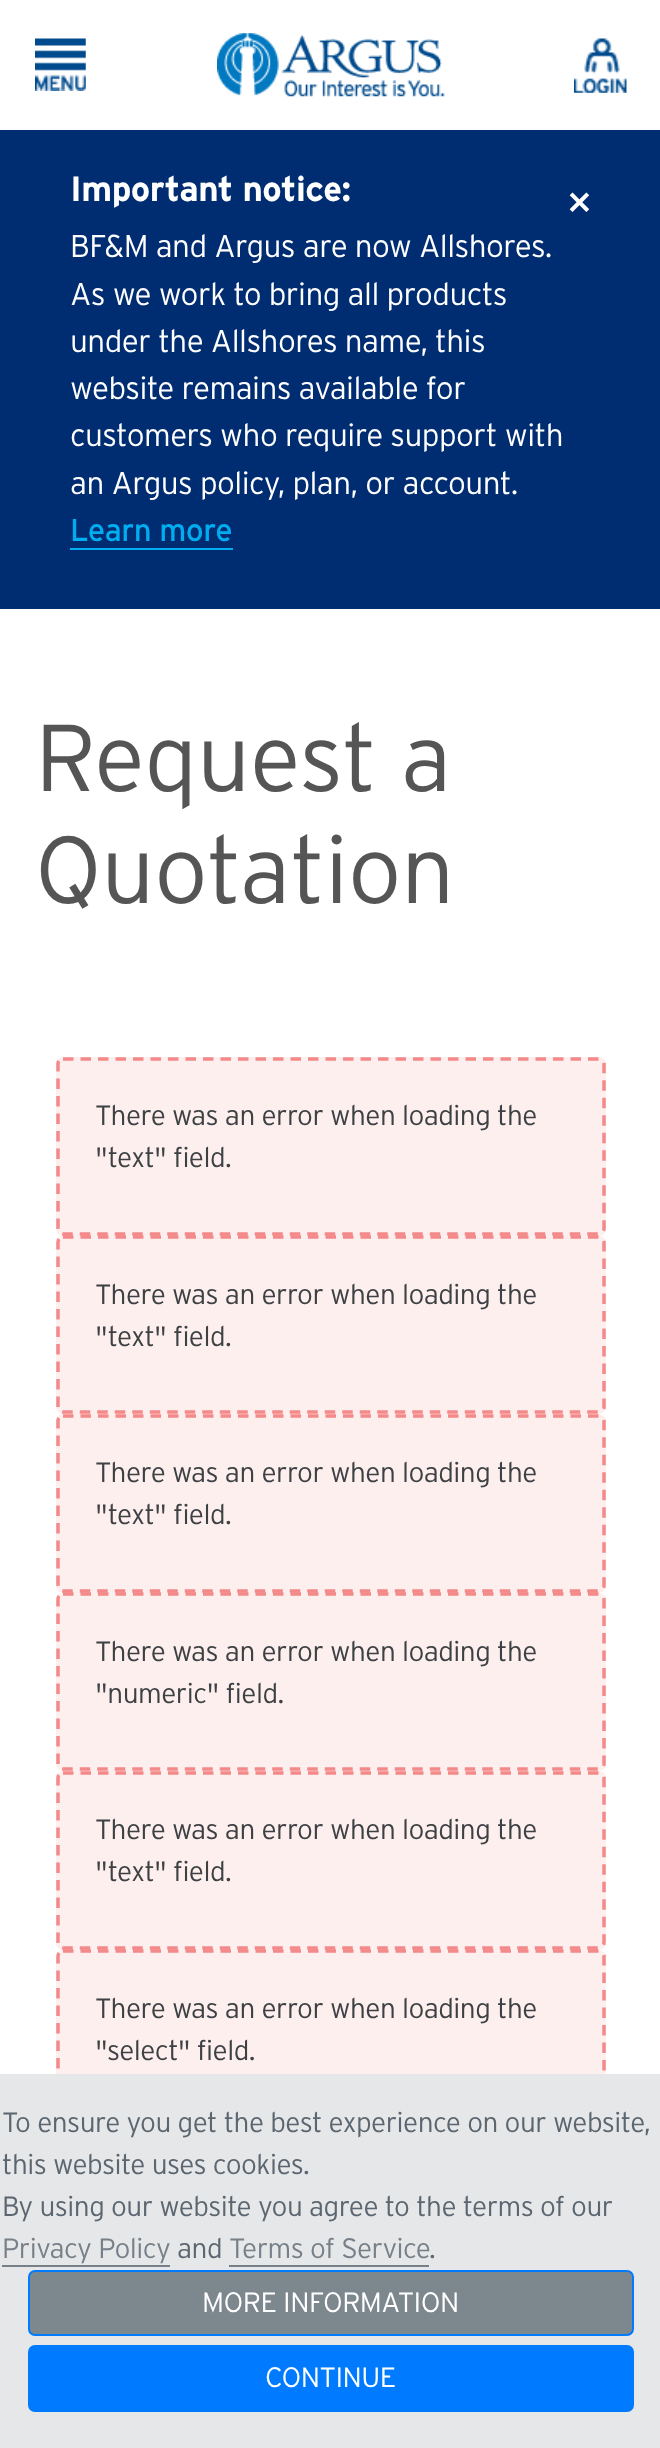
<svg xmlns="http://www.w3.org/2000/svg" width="660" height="2448">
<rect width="100%" height="100%" fill="#fff"/>
<image x="35" y="38" width="51" height="53" href="media/1.png"/>
<image x="217" y="33" width="228" height="64" href="media/2.png"/>
<image x="574" y="38" width="53" height="55" href="media/3.png"/>
<rect y="130" width="660" height="479" fill="#002d72"/>
<text x="70" y="201" style="font-family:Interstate;font-size:35px;font-weight:bold;letter-spacing:-0.53px;fill:#fff">Important notice:</text>
<text x="566" y="214" style="font-family:DejaVu Sans;font-size:31px;font-weight:bold;letter-spacing:-0.53px;fill:#fff">✕</text>
<text x="70" y="257" style="font-family:Interstate;font-size:31.5px;font-weight:300;letter-spacing:-0.53px;fill:#fff">BF&amp;M and Argus are now Allshores.</text>
<text x="70" y="305" style="font-family:Interstate;font-size:31.5px;font-weight:300;letter-spacing:-0.53px;fill:#fff">As we work to bring all products</text>
<text x="70" y="352" style="font-family:Interstate;font-size:31.5px;font-weight:300;letter-spacing:-0.53px;fill:#fff">under the Allshores name, this</text>
<text x="70" y="399" style="font-family:Interstate;font-size:31.5px;font-weight:300;letter-spacing:-0.53px;fill:#fff">website remains available for</text>
<text x="70" y="446" style="font-family:Interstate;font-size:31.5px;font-weight:300;letter-spacing:-0.53px;fill:#fff">customers who require support with</text>
<text x="70" y="494" style="font-family:Interstate;font-size:31.5px;font-weight:300;letter-spacing:-0.53px;fill:#fff">an Argus policy, plan, or account.</text>
<text x="70" y="541" style="font-family:Interstate;font-size:31.5px;letter-spacing:-0.53px;fill:#00adf0">Learn more</text>
<rect x="70" y="548" width="163" height="2" fill="#00adf0"/>
<text x="35" y="791" style="font-family:Interstate;font-size:94.5px;font-weight:300;letter-spacing:-0.53px;fill:#555">Request a</text>
<text x="35" y="903" style="font-family:Interstate;font-size:94.5px;font-weight:300;letter-spacing:-0.53px;fill:#555">Quotation</text>
<rect x="56" y="1057" width="550" height="179" rx="7" fill="#feefef"/>
<path d="M63 1059h535.5c3 0 5.5 2 5.5 5v164.5c0 3-2.5 5.5-5.5 5.5h-535.5c-3 0-5-2.5-5-5.5v-164.5c0-3 2-5 5-5z" fill="none" stroke="#f48989" stroke-width="3.5" stroke-dasharray="10.5 7"/>
<text x="95" y="1125" style="font-family:Interstate;font-size:28px;font-weight:300;letter-spacing:-0.53px;fill:#3d4144">There was an error when loading the</text>
<text x="95" y="1167" style="font-family:Interstate;font-size:28px;font-weight:300;letter-spacing:-0.53px;fill:#3d4144">"text" field.</text>
<rect x="56" y="1236" width="550" height="178" rx="7" fill="#feefef"/>
<path d="M63 1237h535.5c3 0 5.5 2.5 5.5 5.5v164.5c0 3-2.5 5-5.5 5h-535.5c-3 0-5-2-5-5v-164.5c0-3 2-5.5 5-5.5z" fill="none" stroke="#f48989" stroke-width="3.5" stroke-dasharray="10.5 7"/>
<text x="95" y="1304" style="font-family:Interstate;font-size:28px;font-weight:300;letter-spacing:-0.53px;fill:#3d4144">There was an error when loading the</text>
<text x="95" y="1346" style="font-family:Interstate;font-size:28px;font-weight:300;letter-spacing:-0.53px;fill:#3d4144">"text" field.</text>
<rect x="56" y="1414" width="550" height="179" rx="7" fill="#feefef"/>
<path d="M63 1416h535.5c3 0 5.5 2 5.5 5v164.5c0 3-2.5 5.5-5.5 5.5h-535.5c-3 0-5-2.5-5-5.5v-164.5c0-3 2-5 5-5z" fill="none" stroke="#f48989" stroke-width="3.5" stroke-dasharray="10.5 7"/>
<text x="95" y="1482" style="font-family:Interstate;font-size:28px;font-weight:300;letter-spacing:-0.53px;fill:#3d4144">There was an error when loading the</text>
<text x="95" y="1524" style="font-family:Interstate;font-size:28px;font-weight:300;letter-spacing:-0.53px;fill:#3d4144">"text" field.</text>
<rect x="56" y="1593" width="550" height="178" rx="7" fill="#feefef"/>
<path d="M63 1594h535.5c3 0 5.5 2.5 5.5 5.5v164.5c0 3-2.5 5-5.5 5h-535.5c-3 0-5-2-5-5v-164.5c0-3 2-5.5 5-5.5z" fill="none" stroke="#f48989" stroke-width="3.5" stroke-dasharray="10.5 7"/>
<text x="95" y="1661" style="font-family:Interstate;font-size:28px;font-weight:300;letter-spacing:-0.53px;fill:#3d4144">There was an error when loading the</text>
<text x="95" y="1703" style="font-family:Interstate;font-size:28px;font-weight:300;letter-spacing:-0.53px;fill:#3d4144">"numeric" field.</text>
<rect x="56" y="1771" width="550" height="179" rx="7" fill="#feefef"/>
<path d="M63 1773h535.5c3 0 5.5 2 5.5 5v164.5c0 3-2.5 5.5-5.5 5.5h-535.5c-3 0-5-2.5-5-5.5v-164.5c0-3 2-5 5-5z" fill="none" stroke="#f48989" stroke-width="3.5" stroke-dasharray="10.5 7"/>
<text x="95" y="1839" style="font-family:Interstate;font-size:28px;font-weight:300;letter-spacing:-0.53px;fill:#3d4144">There was an error when loading the</text>
<text x="95" y="1881" style="font-family:Interstate;font-size:28px;font-weight:300;letter-spacing:-0.53px;fill:#3d4144">"text" field.</text>
<rect x="56" y="1950" width="550" height="178" rx="7" fill="#feefef"/>
<path d="M63 1951h535.5c3 0 5.5 2.5 5.5 5.5v164.5c0 3-2.5 5-5.5 5h-535.5c-3 0-5-2-5-5v-164.5c0-3 2-5.5 5-5.5z" fill="none" stroke="#f48989" stroke-width="3.5" stroke-dasharray="10.5 7"/>
<text x="95" y="2018" style="font-family:Interstate;font-size:28px;font-weight:300;letter-spacing:-0.53px;fill:#3d4144">There was an error when loading the</text>
<text x="95" y="2060" style="font-family:Interstate;font-size:28px;font-weight:300;letter-spacing:-0.53px;fill:#3d4144">"select" field.</text>
<rect y="2074" width="660" height="374" fill="#e5e7e8"/>
<text x="2" y="2132" style="font-family:Interstate;font-size:28px;font-weight:300;letter-spacing:-0.53px;fill:#5c6670">To ensure you get the best experience on our website,</text>
<text x="2" y="2174" style="font-family:Interstate;font-size:28px;font-weight:300;letter-spacing:-0.53px;fill:#5c6670">this website uses cookies.</text>
<text x="2" y="2216" style="font-family:Interstate;font-size:28px;font-weight:300;letter-spacing:-0.53px;fill:#5c6670">By using our website you agree to the terms of our</text>
<text x="2" y="2258" style="font-family:Interstate;font-size:28px;font-weight:300;letter-spacing:-0.53px;fill:#778088">Privacy Policy</text>
<rect x="2" y="2265" width="168" height="2" fill="#778088"/>
<text x="177" y="2258" style="font-family:Interstate;font-size:28px;font-weight:300;letter-spacing:-0.53px;fill:#5c6670">and</text>
<text x="229" y="2258" style="font-family:Interstate;font-size:28px;font-weight:300;letter-spacing:-0.53px;fill:#778088">Terms of Service</text>
<rect x="229" y="2265" width="200" height="2" fill="#778088"/>
<text x="429" y="2258" style="font-family:Interstate;font-size:28px;font-weight:300;letter-spacing:-0.53px;fill:#5c6670">.</text>
<rect x="29" y="2271" width="604" height="64" rx="6" fill="#7c878e" stroke="#007bff" stroke-width="2"/>
<text x="202" y="2312" style="font-family:Interstate;font-size:28px;font-weight:300;letter-spacing:-0.53px;fill:#fff">MORE INFORMATION</text>
<rect x="29" y="2346" width="604" height="65" rx="6" fill="#007bff" stroke="#007bff" stroke-width="2"/>
<text x="265" y="2387" style="font-family:Interstate;font-size:28px;font-weight:300;letter-spacing:-0.53px;fill:#fff">CONTINUE</text>
</svg>
